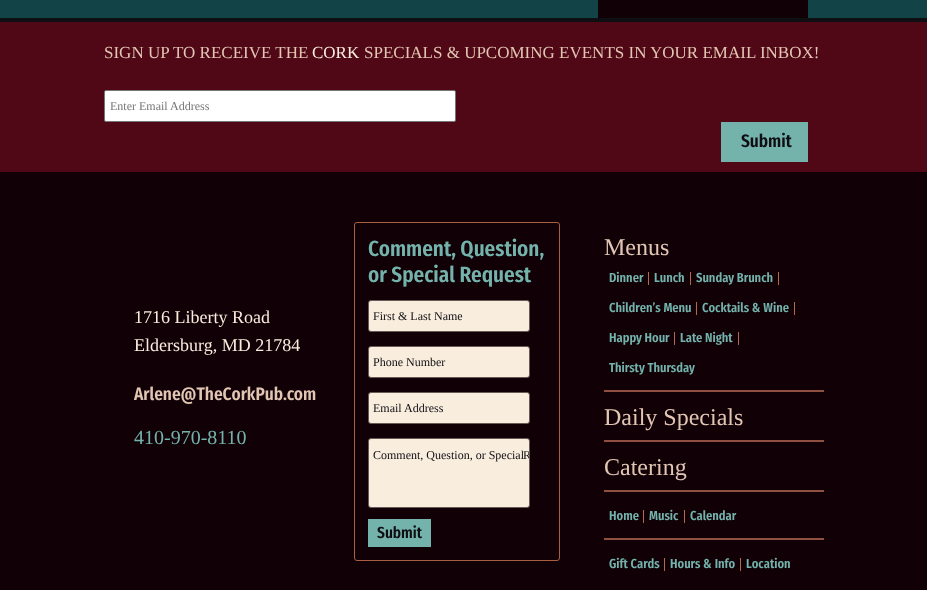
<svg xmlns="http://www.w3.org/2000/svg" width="927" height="590">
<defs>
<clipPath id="clip1"><rect x="369" y="439" width="160" height="68" rx="2"/></clipPath>
</defs>
<rect width="100%" height="100%" fill="#124347"/>
<rect x="598" width="210" height="18" fill="#110006"/>
<rect y="22" width="927" height="150" fill="#510816"/>
<rect y="18" width="927" height="4" fill="#0f0e13"/>
<text x="104" y="58" style="font-family:Liberation Serif;font-size:17px;fill:#e2c6b3">SIGN UP TO RECEIVE THE</text>
<text x="312" y="58" style="font-family:Liberation Serif;font-size:17px;fill:#f9edde">CORK</text>
<text x="364" y="58" style="font-family:Liberation Serif;font-size:17px;fill:#e2c6b3">SPECIALS &amp; UPCOMING EVENTS IN YOUR EMAIL INBOX!</text>
<rect x="104.5" y="90.5" width="351" height="31" rx="1.5" fill="#fff" stroke="#767676"/>
<text x="110" y="110" style="font-family:Liberation Serif;font-size:12px;fill:#757575">Enter Email Address</text>
<rect x="721" y="122" width="87" height="40" fill="#74b2ac"/>
<text x="741" y="147" style="font-family:Fira Sans Condensed;font-size:18px;font-weight:600;fill:#0f0e13">Submit</text>
<rect y="172" width="927" height="418" fill="#110106"/>
<text x="134" y="323" style="font-family:Liberation Serif;font-size:18px;fill:#f9edde">1716 Liberty Road</text>
<text x="134" y="351" style="font-family:Liberation Serif;font-size:18px;fill:#f9edde">Eldersburg, MD 21784</text>
<text x="134" y="400" style="font-family:Fira Sans Condensed;font-size:18px;font-weight:600;fill:#e2c6b3">Arlene@TheCorkPub.com</text>
<text x="134" y="444" style="font-family:Liberation Serif;font-size:20px;fill:#74b2ac">410-970-8110</text>
<rect x="354.5" y="222.5" width="205" height="338" rx="2.5" fill="none" stroke="#aa5e42"/>
<text x="368" y="256" style="font-family:Fira Sans Condensed;font-size:22px;font-weight:600;fill:#74b2ac">Comment, Question,</text>
<text x="368" y="282" style="font-family:Fira Sans Condensed;font-size:22px;font-weight:600;fill:#74b2ac">or Special Request</text>
<rect x="368.5" y="300.5" width="161" height="31" rx="2.5" fill="#f9edde" stroke="#685a57"/>
<text x="373" y="320" style="font-family:Liberation Serif;font-size:12px;fill:#0f0e13">First &amp; Last Name</text>
<rect x="368.5" y="346.5" width="161" height="31" rx="2.5" fill="#f9edde" stroke="#685a57"/>
<text x="373" y="366" style="font-family:Liberation Serif;font-size:12px;fill:#0f0e13">Phone Number</text>
<rect x="368.5" y="392.5" width="161" height="31" rx="2.5" fill="#f9edde" stroke="#685a57"/>
<text x="373" y="412" style="font-family:Liberation Serif;font-size:12px;fill:#0f0e13">Email Address</text>
<rect x="368.5" y="438.5" width="161" height="69" rx="2.5" fill="#f9edde" stroke="#685a57"/>
<text x="373" y="459" style="font-family:Liberation Serif;font-size:12px;fill:#0f0e13">Comment, Question, or Special</text>
<g clip-path="url(#clip1)">
<text x="523" y="459" style="font-family:Liberation Serif;font-size:12px;fill:#0f0e13">R</text>
</g>
<rect x="368" y="519" width="63" height="28" fill="#74b2ac"/>
<text x="377" y="538" style="font-family:Fira Sans Condensed;font-size:16px;font-weight:600;fill:#0f0e13">Submit</text>
<rect x="604" y="390" width="220" height="2" fill="#8f503f"/>
<text x="604" y="255" style="font-family:Liberation Serif;font-size:24px;fill:#e2c6b3">Menus</text>
<text x="609" y="282" style="font-family:Fira Sans Condensed;font-size:13px;font-weight:600;fill:#74b2ac">Dinner</text>
<rect x="648" y="272" width="1" height="13" fill="#b56850"/>
<text x="654" y="282" style="font-family:Fira Sans Condensed;font-size:13px;font-weight:600;fill:#74b2ac">Lunch</text>
<rect x="690" y="272" width="1" height="13" fill="#b56850"/>
<text x="696" y="282" style="font-family:Fira Sans Condensed;font-size:13px;font-weight:600;fill:#74b2ac">Sunday Brunch</text>
<rect x="778" y="272" width="1" height="13" fill="#b56850"/>
<text x="609" y="312" style="font-family:Fira Sans Condensed;font-size:13px;font-weight:600;fill:#74b2ac">Children’s Menu</text>
<rect x="696" y="302" width="1" height="13" fill="#b56850"/>
<text x="702" y="312" style="font-family:Fira Sans Condensed;font-size:13px;font-weight:600;fill:#74b2ac">Cocktails &amp; Wine</text>
<rect x="794" y="302" width="1" height="13" fill="#b56850"/>
<text x="609" y="342" style="font-family:Fira Sans Condensed;font-size:13px;font-weight:600;fill:#74b2ac">Happy Hour</text>
<rect x="674" y="332" width="1" height="13" fill="#b56850"/>
<text x="680" y="342" style="font-family:Fira Sans Condensed;font-size:13px;font-weight:600;fill:#74b2ac">Late Night</text>
<rect x="738" y="332" width="1" height="13" fill="#b56850"/>
<text x="609" y="372" style="font-family:Fira Sans Condensed;font-size:13px;font-weight:600;fill:#74b2ac">Thirsty Thursday</text>
<rect x="604" y="440" width="220" height="2" fill="#8f503f"/>
<text x="604" y="425" style="font-family:Liberation Serif;font-size:24px;fill:#e2c6b3">Daily Specials</text>
<rect x="604" y="490" width="220" height="2" fill="#8f503f"/>
<text x="604" y="475" style="font-family:Liberation Serif;font-size:24px;fill:#e2c6b3">Catering</text>
<rect x="604" y="538" width="220" height="2" fill="#8f503f"/>
<text x="609" y="520" style="font-family:Fira Sans Condensed;font-size:13px;font-weight:600;fill:#74b2ac">Home</text>
<rect x="643" y="510" width="1" height="13" fill="#b56850"/>
<text x="649" y="520" style="font-family:Fira Sans Condensed;font-size:13px;font-weight:600;fill:#74b2ac">Music</text>
<rect x="684" y="510" width="1" height="13" fill="#b56850"/>
<text x="690" y="520" style="font-family:Fira Sans Condensed;font-size:13px;font-weight:600;fill:#74b2ac">Calendar</text>
<text x="609" y="568" style="font-family:Fira Sans Condensed;font-size:13px;font-weight:600;fill:#74b2ac">Gift Cards</text>
<rect x="664" y="558" width="1" height="13" fill="#b56850"/>
<text x="670" y="568" style="font-family:Fira Sans Condensed;font-size:13px;font-weight:600;fill:#74b2ac">Hours &amp; Info</text>
<rect x="740" y="558" width="1" height="13" fill="#b56850"/>
<text x="746" y="568" style="font-family:Fira Sans Condensed;font-size:13px;font-weight:600;fill:#74b2ac">Location</text>
</svg>
